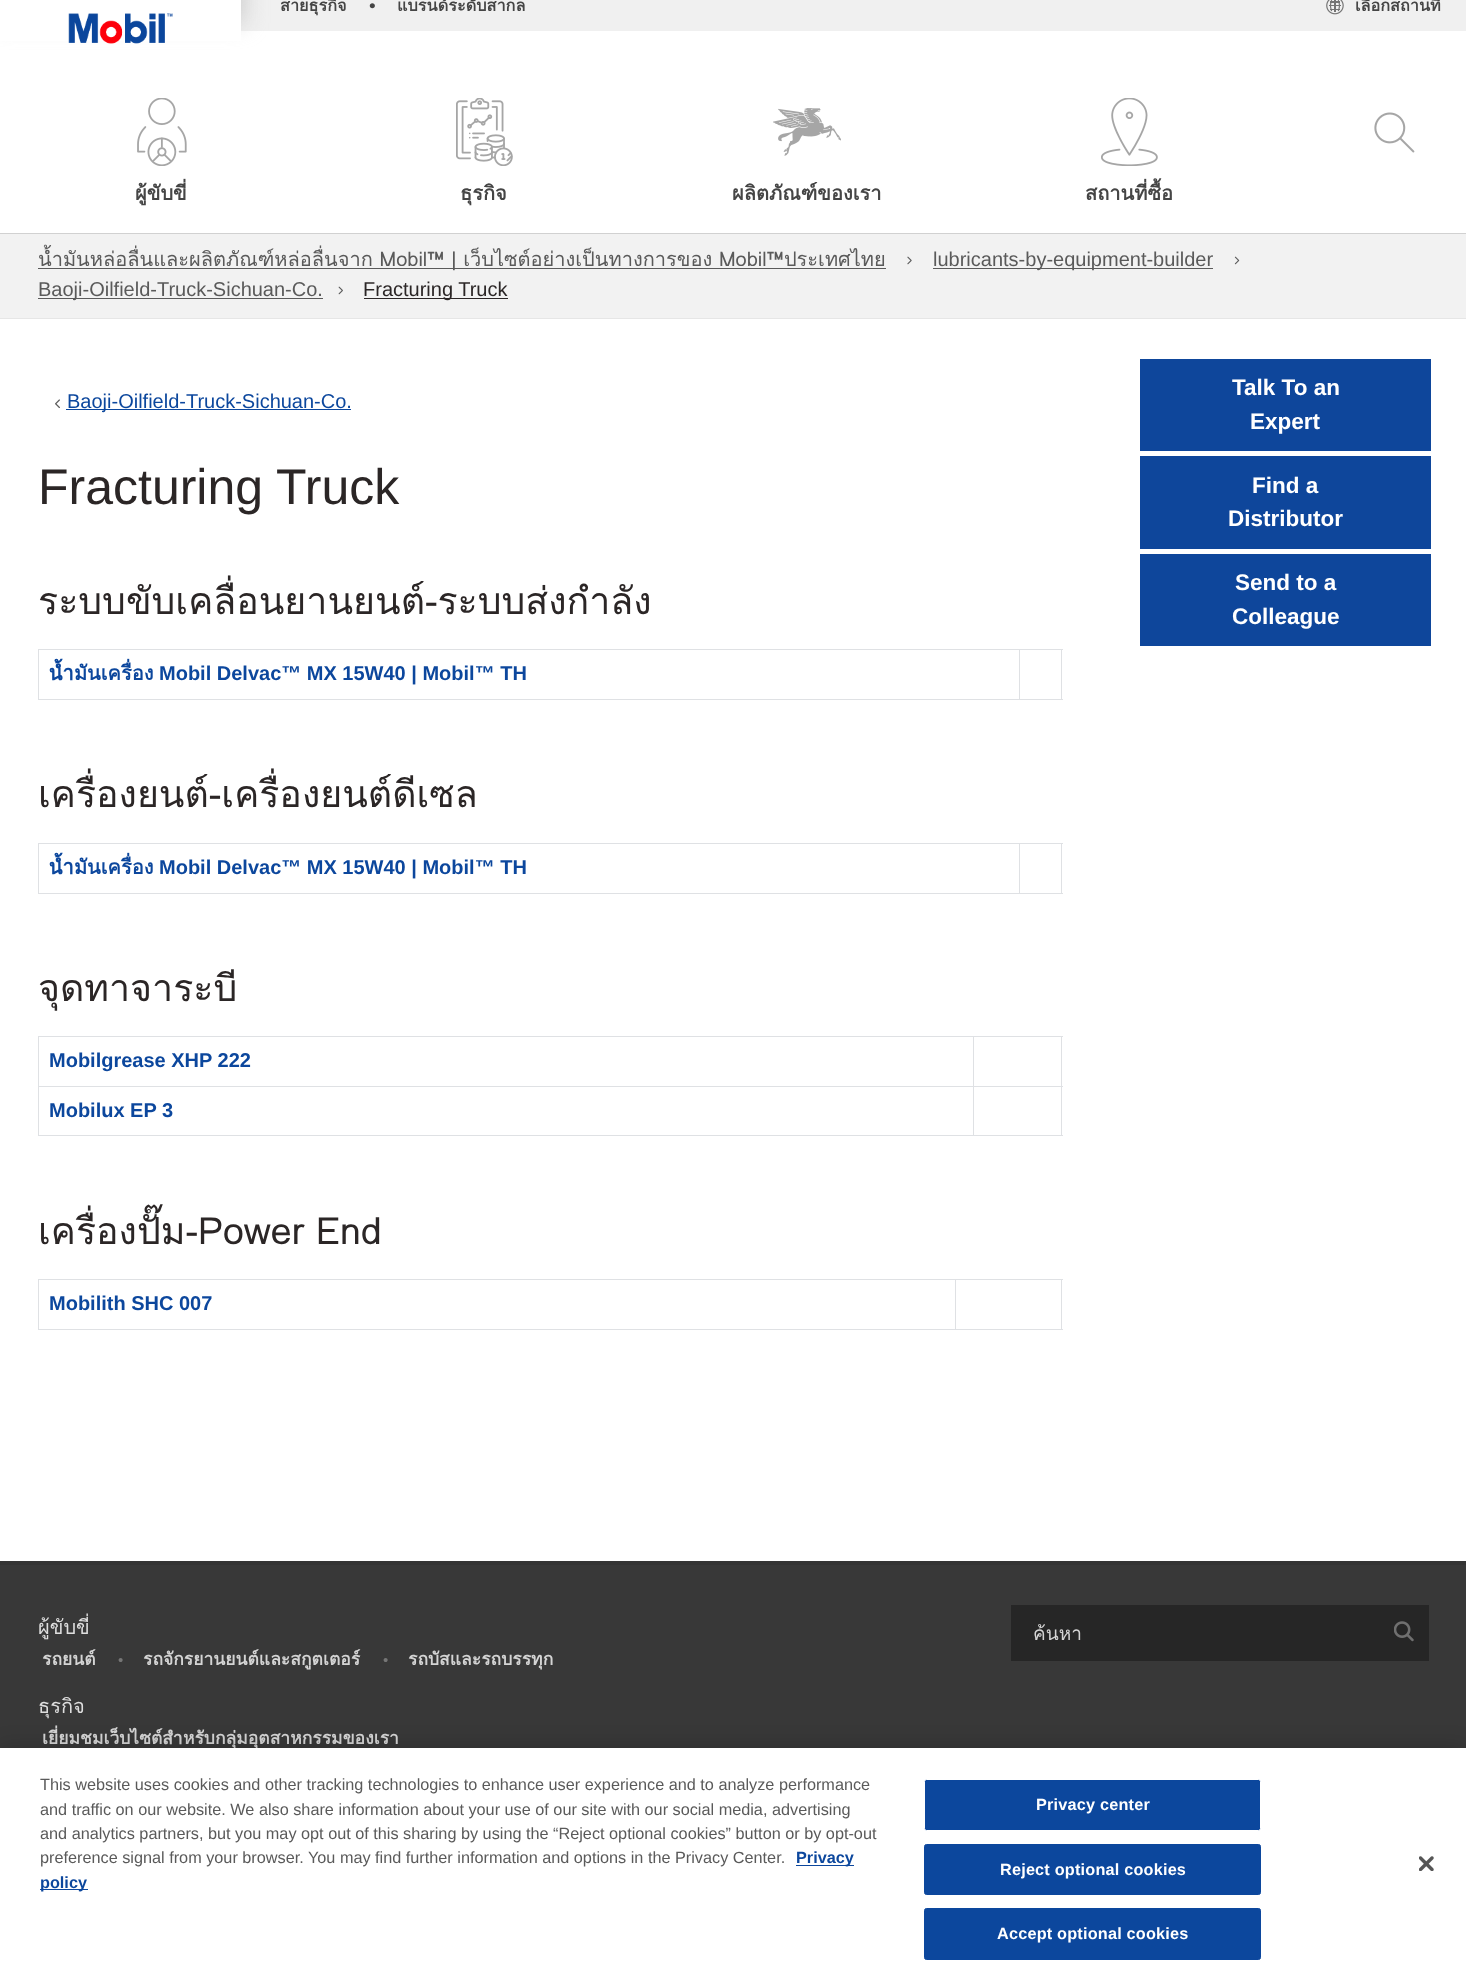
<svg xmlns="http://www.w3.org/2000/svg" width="1466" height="1985">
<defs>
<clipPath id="clip1"><rect x="38" y="954" width="1025" height="182"/></clipPath>
<clipPath id="clip2"><rect x="38" y="1605" width="973" height="264"/></clipPath>
<clipPath id="clip3"><rect x="1033" y="1619" width="343" height="30"/></clipPath>
</defs>
<rect width="100%" height="100%" fill="#fff"/>
<rect y="233" width="1466" height="85" fill="#f2f2f2"/>
<rect y="-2" width="1466" height="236" fill="#11111126" filter="blur(0.5px)"/>
<rect x="241" width="1225" height="31" fill="#f0f0f0"/>
<rect y="31" width="1466" height="202" fill="#fff"/>
<rect x="-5" y="-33" width="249" height="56" fill="#ccc" filter="blur(11px)"/>
<rect width="241" height="41" fill="#fff"/>
<image x="68" y="13" width="105" height="31" href="media/1.png"/>
<text x="280" y="11" style="font-family:Loma;font-size:16.25px;font-weight:bold;fill:#454545">สายธุรกิจ</text>
<text x="369" y="12" style="font-family:Liberation Sans;font-size:19px;fill:#454545">•</text>
<text x="397" y="11" style="font-family:Loma;font-size:16.25px;font-weight:bold;fill:#454545">แบรนด์ระดับสากล</text>
<image x="1326" y="0" width="18" height="15" href="media/2.png"/>
<text x="1355" y="11" style="font-family:Loma;font-size:16.25px;font-weight:bold;fill:#454545">เลือกสถานที่</text>
<image x="1374" y="112" width="41" height="41" href="media/3.png"/>
<image x="137" y="98" width="50" height="68" href="media/4.png"/>
<text x="135" y="200" style="font-family:Loma;font-size:20px;font-weight:bold;fill:#454545">ผู้ขับขี่</text>
<image x="456" y="98" width="57" height="68" href="media/5.png"/>
<text x="460" y="200" style="font-family:Loma;font-size:20px;font-weight:bold;fill:#454545">ธุรกิจ</text>
<image x="773" y="108" width="68" height="48" href="media/6.png"/>
<text x="732" y="200" style="font-family:Loma;font-size:20px;font-weight:bold;fill:#454545">ผลิตภัณฑ์ของเรา</text>
<image x="1101" y="98" width="57" height="68" href="media/7.png"/>
<text x="1085" y="200" style="font-family:Loma;font-size:20px;font-weight:bold;fill:#454545">สถานที่ซื้อ</text>
<rect y="318" width="1466" height="1" fill="#e6e6e6"/>
<rect x="38" y="268" width="848" height="1" fill="#5a5a5a"/>
<text x="38" y="266" style="font-family:Loma;font-size:20px;fill:#5a5a5a">น้ำมันหล่อลื่นและผลิตภัณฑ์หล่อลื่นจาก Mobil™ | เว็บไซต์อย่างเป็นทางการของ Mobil™ประเทศไทย</text>
<image x="907" y="256" width="5" height="9" href="media/8.png"/>
<rect x="933" y="268" width="280" height="1" fill="#5a5a5a"/>
<text x="933" y="266" style="font-family:Liberation Sans;font-size:20px;fill:#5a5a5a">lubricants-by-equipment-builder</text>
<image x="1234" y="256" width="6" height="9" href="media/9.png"/>
<rect x="38" y="298" width="285" height="1" fill="#5a5a5a"/>
<text x="38" y="296" style="font-family:Liberation Sans;font-size:20px;fill:#5a5a5a">Baoji-Oilfield-Truck-Sichuan-Co.</text>
<image x="338" y="286" width="5" height="9" href="media/10.png"/>
<rect x="364" y="298" width="144" height="1" fill="#2b2626"/>
<text x="363" y="296" style="font-family:Liberation Sans;font-size:20px;fill:#2b2626">Fracturing Truck</text>
<image x="55" y="399" width="5" height="10" href="media/11.png"/>
<rect x="66" y="409" width="285" height="1" fill="#0c479d"/>
<text x="67" y="408" style="font-family:Liberation Sans;font-size:20px;fill:#0c479d">Baoji-Oilfield-Truck-Sichuan-Co.</text>
<text x="38" y="504" style="font-family:Liberation Sans;font-size:50px;fill:#2b2626">Fracturing Truck</text>
<text x="38" y="614" style="font-family:Loma;font-size:37.5px;fill:#2b2626">ระบบขับเคลื่อนยานยนต์-ระบบส่งกำลัง</text>
<rect x="1019" y="649" width="44" height="1" fill="#dfe1e4"/>
<rect x="1061" y="649" width="1" height="51" fill="#dfe1e4"/>
<rect x="1019" y="699" width="44" height="1" fill="#dfe1e4"/>
<rect x="1019" y="649" width="1" height="51" fill="#dfe1e4"/>
<rect x="38" y="649" width="982" height="1" fill="#dfe1e4"/>
<rect x="38" y="699" width="982" height="1" fill="#dfe1e4"/>
<rect x="38" y="649" width="1" height="51" fill="#dfe1e4"/>
<text x="49" y="680" style="font-family:Loma;font-size:20px;font-weight:bold;fill:#0c479d">น้ำมันเครื่อง</text>
<text x="159" y="680" style="font-family:Liberation Sans;font-size:20px;font-weight:bold;fill:#0c479d">Mobil Delvac™ MX 15W40 | Mobil™ TH</text>
<text x="38" y="807" style="font-family:Loma;font-size:37.5px;fill:#2b2626">เครื่องยนต์-เครื่องยนต์ดีเซล</text>
<rect x="1019" y="843" width="44" height="1" fill="#dfe1e4"/>
<rect x="1061" y="843" width="1" height="51" fill="#dfe1e4"/>
<rect x="1019" y="893" width="44" height="1" fill="#dfe1e4"/>
<rect x="1019" y="843" width="1" height="51" fill="#dfe1e4"/>
<rect x="38" y="843" width="982" height="1" fill="#dfe1e4"/>
<rect x="38" y="893" width="982" height="1" fill="#dfe1e4"/>
<rect x="38" y="843" width="1" height="51" fill="#dfe1e4"/>
<text x="49" y="874" style="font-family:Loma;font-size:20px;font-weight:bold;fill:#0c479d">น้ำมันเครื่อง</text>
<text x="159" y="874" style="font-family:Liberation Sans;font-size:20px;font-weight:bold;fill:#0c479d">Mobil Delvac™ MX 15W40 | Mobil™ TH</text>
<g clip-path="url(#clip1)">
<text x="38" y="1001" style="font-family:Loma;font-size:37.5px;fill:#2b2626">จุดทาจาระบี</text>
</g>
<rect x="973" y="1036" width="90" height="1" fill="#dfe1e4"/>
<rect x="973" y="1086" width="90" height="1" fill="#dfe1e4"/>
<rect x="1061" y="1086" width="1" height="50" fill="#dfe1e4"/>
<rect x="973" y="1135" width="90" height="1" fill="#dfe1e4"/>
<rect x="973" y="1086" width="1" height="50" fill="#dfe1e4"/>
<rect x="38" y="1086" width="936" height="1" fill="#dfe1e4"/>
<rect x="973" y="1036" width="1" height="52" fill="#dfe1e4"/>
<rect x="38" y="1036" width="936" height="1" fill="#dfe1e4"/>
<rect x="38" y="1135" width="936" height="1" fill="#dfe1e4"/>
<rect x="38" y="1086" width="1" height="50" fill="#dfe1e4"/>
<rect x="38" y="1036" width="1" height="52" fill="#dfe1e4"/>
<text x="49" y="1067" style="font-family:Liberation Sans;font-size:20px;font-weight:bold;fill:#0c479d">Mobilgrease XHP 222</text>
<rect x="1061" y="1036" width="1" height="52" fill="#dfe1e4"/>
<text x="49" y="1117" style="font-family:Liberation Sans;font-size:20px;font-weight:bold;fill:#0c479d">Mobilux EP 3</text>
<text x="38" y="1244" word-spacing="-1" style="font-family:Loma;font-size:37.5px;fill:#2b2626">เครื่องปั๊ม-Power End</text>
<rect x="955" y="1279" width="108" height="1" fill="#dfe1e4"/>
<rect x="1061" y="1279" width="1" height="51" fill="#dfe1e4"/>
<rect x="955" y="1329" width="108" height="1" fill="#dfe1e4"/>
<rect x="955" y="1279" width="1" height="51" fill="#dfe1e4"/>
<rect x="38" y="1279" width="918" height="1" fill="#dfe1e4"/>
<rect x="38" y="1329" width="918" height="1" fill="#dfe1e4"/>
<rect x="38" y="1279" width="1" height="51" fill="#dfe1e4"/>
<text x="49" y="1310" style="font-family:Liberation Sans;font-size:20px;font-weight:bold;fill:#0c479d">Mobilith SHC 007</text>
<rect x="1140" y="359" width="291" height="92" fill="#0e469b"/>
<text x="1232" y="395" style="font-family:Liberation Sans;font-size:22.5px;font-weight:bold;fill:#fff">Talk To an</text>
<text x="1250" y="429" style="font-family:Liberation Sans;font-size:22.5px;font-weight:bold;fill:#fff">Expert</text>
<rect x="1140" y="456" width="291" height="93" fill="#0e469b"/>
<text x="1252" y="493" style="font-family:Liberation Sans;font-size:22.5px;font-weight:bold;fill:#fff">Find a</text>
<text x="1228" y="526" style="font-family:Liberation Sans;font-size:22.5px;font-weight:bold;fill:#fff">Distributor</text>
<rect x="1140" y="554" width="291" height="92" fill="#0e469b"/>
<text x="1235" y="590" style="font-family:Liberation Sans;font-size:22.5px;font-weight:bold;fill:#fff">Send to a</text>
<text x="1232" y="624" style="font-family:Liberation Sans;font-size:22.5px;font-weight:bold;fill:#fff">Colleague</text>
<rect y="1565" width="1466" height="183" fill="#383838"/>
<rect y="1561" width="1466" height="4" fill="#343434"/>
<g clip-path="url(#clip2)">
<text x="38" y="1634" style="font-family:Loma;font-size:20px;fill:#dedede">ผู้ขับขี่</text>
</g>
<text x="42" y="1665" style="font-family:Loma;font-size:17.5px;font-weight:bold;fill:#d4d4d4">รถยนต์</text>
<text x="118" y="1665" style="font-family:Liberation Serif;font-size:15px;font-weight:bold;fill:#767676">•</text>
<text x="143" y="1665" style="font-family:Loma;font-size:17.5px;font-weight:bold;fill:#d4d4d4">รถจักรยานยนต์และสกูตเตอร์</text>
<text x="383" y="1665" style="font-family:Liberation Serif;font-size:15px;font-weight:bold;fill:#767676">•</text>
<text x="408" y="1665" style="font-family:Loma;font-size:17.5px;font-weight:bold;fill:#d4d4d4">รถบัสและรถบรรทุก</text>
<g clip-path="url(#clip2)">
<text x="38" y="1713" style="font-family:Loma;font-size:20px;fill:#dedede">ธุรกิจ</text>
</g>
<text x="42" y="1744" style="font-family:Loma;font-size:17.5px;font-weight:bold;fill:#d4d4d4">เยี่ยมชมเว็บไซต์สำหรับกลุ่มอุตสาหกรรมของเรา</text>
<rect x="1011" y="1605" width="418" height="56" fill="#262626"/>
<g clip-path="url(#clip3)">
<text x="1033" y="1640" style="font-family:Loma;font-size:19px;fill:#d4d4d4">ค้นหา</text>
</g>
<image x="1394" y="1621" width="20" height="21" href="media/12.png"/>
<rect y="1748" width="1466" height="237" fill="#00000033" filter="blur(11px)"/>
<rect y="1748" width="1466" height="237" fill="#fff"/>
<text x="40" y="1790" style="font-family:Liberation Sans;font-size:16.25px;fill:#5a5a5a">This website uses cookies and other tracking technologies to enhance user experience and to analyze performance</text>
<text x="40" y="1815" style="font-family:Liberation Sans;font-size:16.25px;fill:#5a5a5a">and traffic on our website. We also share information about your use of our site with our social media, advertising</text>
<text x="40" y="1839" style="font-family:Liberation Sans;font-size:16.25px;fill:#5a5a5a">and analytics partners, but you may opt out of this sharing by using the “Reject optional cookies” button or by opt-out</text>
<text x="40" y="1863" style="font-family:Liberation Sans;font-size:16.25px;fill:#5a5a5a">preference signal from your browser. You may find further information and options in the Privacy Center.</text>
<rect x="796" y="1865" width="58" height="1" fill="#0c479d"/>
<text x="796" y="1863" style="font-family:Liberation Sans;font-size:16.25px;font-weight:bold;fill:#0c479d">Privacy</text>
<rect x="40" y="1889" width="48" height="1" fill="#0c479d"/>
<text x="40" y="1888" style="font-family:Liberation Sans;font-size:16.25px;font-weight:bold;fill:#0c479d">policy</text>
<rect x="924.5" y="1779.5" width="336" height="51" rx="2" fill="#0c479d" stroke="#fff"/>
<text x="1036" y="1810" style="font-family:Liberation Sans;font-size:16.25px;font-weight:bold;letter-spacing:0.2px;fill:#fff">Privacy center</text>
<rect x="924.5" y="1844.5" width="336" height="50" rx="2" fill="#0c479d" stroke="#0c479d"/>
<text x="1000" y="1875" style="font-family:Liberation Sans;font-size:16.25px;font-weight:bold;letter-spacing:0.2px;fill:#fff">Reject optional cookies</text>
<rect x="924.5" y="1908.5" width="336" height="51" rx="2" fill="#0c479d" stroke="#0c479d"/>
<text x="997" y="1939" style="font-family:Liberation Sans;font-size:16.25px;font-weight:bold;letter-spacing:0.2px;fill:#fff">Accept optional cookies</text>
<image x="1419" y="1856" width="15" height="15" href="media/13.png"/>
</svg>
